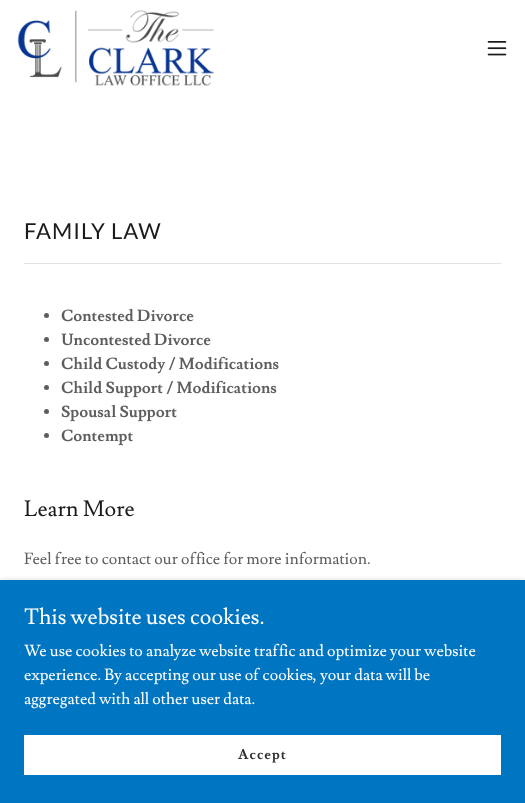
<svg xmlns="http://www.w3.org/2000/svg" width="525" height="803">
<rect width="100%" height="100%" fill="#fff"/>
<image x="17" y="10" width="197" height="76" href="media/1.png"/>
<image x="487" y="41" width="20" height="15" href="media/2.png"/>
<text x="24" y="239" style="font-family:Lato;font-size:22px;letter-spacing:1px;fill:#1b1b1b">FAMILY LAW</text>
<rect x="24" y="263" width="477" height="1" fill="#e2e2e2"/>
<circle cx="46.5" cy="315.5" r="2.5" fill="#5e5e5e"/>
<text x="61" y="321" style="font-family:Lusitana;font-size:16px;font-weight:bold;fill:#5e5e5e">Contested Divorce</text>
<circle cx="46.5" cy="339.5" r="2.5" fill="#5e5e5e"/>
<text x="61" y="345" style="font-family:Lusitana;font-size:16px;font-weight:bold;fill:#5e5e5e">Uncontested Divorce</text>
<circle cx="46.5" cy="363.5" r="2.5" fill="#5e5e5e"/>
<text x="61" y="369" style="font-family:Lusitana;font-size:16px;font-weight:bold;fill:#5e5e5e">Child Custody / Modifications</text>
<circle cx="46.5" cy="387.5" r="2.5" fill="#5e5e5e"/>
<text x="61" y="393" style="font-family:Lusitana;font-size:16px;font-weight:bold;fill:#5e5e5e">Child Support / Modifications</text>
<circle cx="46.5" cy="411.5" r="2.5" fill="#5e5e5e"/>
<text x="61" y="417" style="font-family:Lusitana;font-size:16px;font-weight:bold;fill:#5e5e5e">Spousal Support</text>
<circle cx="46.5" cy="435.5" r="2.5" fill="#5e5e5e"/>
<text x="61" y="441" style="font-family:Lusitana;font-size:16px;font-weight:bold;fill:#5e5e5e">Contempt</text>
<text x="24" y="516" style="font-family:Lusitana;font-size:22px;fill:#1b1b1b">Learn More</text>
<text x="24" y="564" style="font-family:Lusitana;font-size:16px;fill:#5e5e5e">Feel free to contact our office for more information.</text>
<rect y="582" width="525" height="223" fill="#0000004d" filter="blur(3px)"/>
<rect y="580" width="525" height="223" fill="#0075c1"/>
<text x="24" y="624" style="font-family:Lusitana;font-size:22px;fill:#fff">This website uses cookies.</text>
<text x="24" y="656" style="font-family:Lusitana;font-size:16px;fill:#fff">We use cookies to analyze website traffic and optimize your website</text>
<text x="24" y="680" style="font-family:Lusitana;font-size:16px;fill:#fff">experience. By accepting our use of cookies, your data will be</text>
<text x="24" y="704" style="font-family:Lusitana;font-size:16px;fill:#fff">aggregated with all other user data.</text>
<rect x="24" y="735" width="477" height="40" fill="#fff"/>
<text x="238" y="759" style="font-family:Lusitana;font-size:14px;font-weight:bold;letter-spacing:1px;fill:#303030">Accept</text>
</svg>
